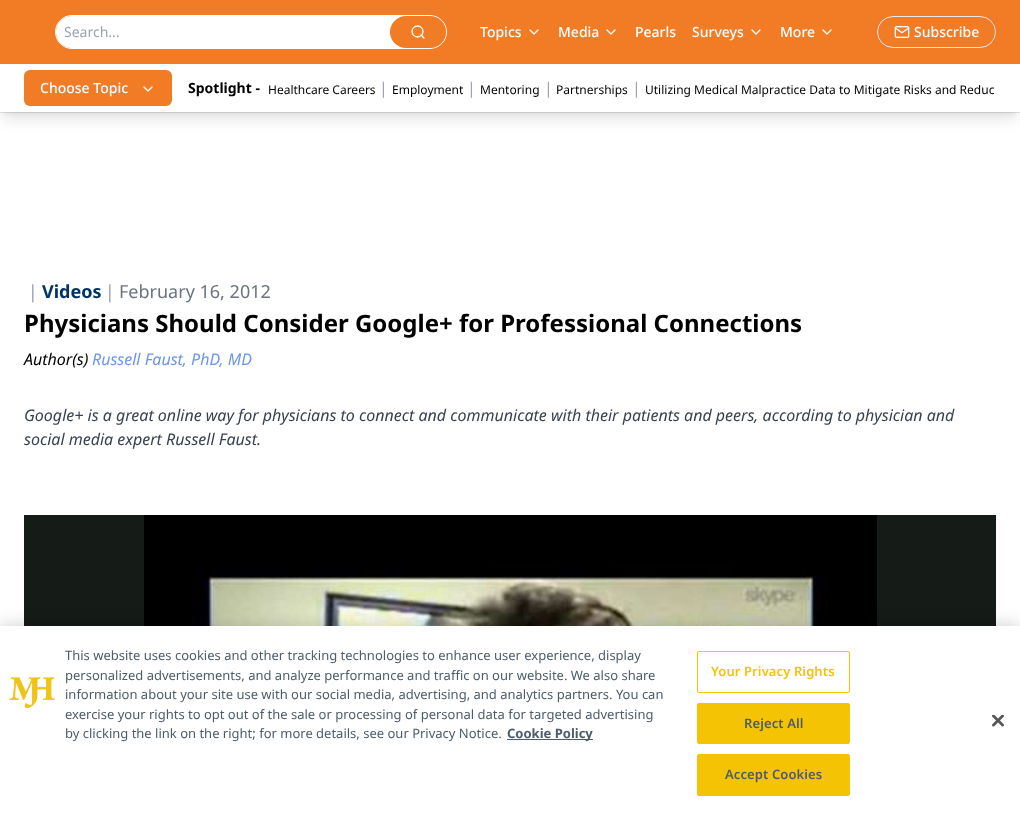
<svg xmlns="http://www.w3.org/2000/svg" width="1020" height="816">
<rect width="100%" height="100%" fill="#fff"/>
<rect width="1020" height="64" fill="#f27b26"/>
<rect y="112" width="1020" height="1" fill="#e5e7eb"/>
<rect x="55.5" y="15.5" width="391" height="33" rx="16.5" fill="none" stroke="#fff"/>
<rect x="56" y="16" width="390" height="32" rx="16" fill="#fff"/>
<text x="64" y="37" style="font-family:Noto Sans;font-size:14px;fill:#9ca3af">Search...</text>
<rect x="390" y="16" width="56" height="32" rx="16" fill="#f27b26"/>
<circle cx="417.5" cy="31.5" r="5.5" fill="none" stroke="#fff" stroke-width="1.3"/>
<path d="M424 38l-3-3" fill="none" stroke="#fff" stroke-width="1.3" stroke-linecap="round" stroke-linejoin="round"/>
<text x="480" y="37" style="font-family:Noto Sans;font-size:14px;font-weight:500;fill:#fff">Topics</text>
<path d="M530 30l4 4l4-4" fill="none" stroke="#fff" stroke-width="1.3" stroke-linecap="round" stroke-linejoin="round"/>
<text x="558" y="37" style="font-family:Noto Sans;font-size:14px;font-weight:500;fill:#fff">Media</text>
<path d="M607 30l4 4l4-4" fill="none" stroke="#fff" stroke-width="1.3" stroke-linecap="round" stroke-linejoin="round"/>
<text x="635" y="37" style="font-family:Noto Sans;font-size:14px;font-weight:500;fill:#fff">Pearls</text>
<text x="692" y="37" style="font-family:Noto Sans;font-size:14px;font-weight:500;fill:#fff">Surveys</text>
<path d="M752 30l4 4l4-4" fill="none" stroke="#fff" stroke-width="1.3" stroke-linecap="round" stroke-linejoin="round"/>
<text x="780" y="37" style="font-family:Noto Sans;font-size:14px;font-weight:500;fill:#fff">More</text>
<path d="M823 30l4 4l4-4" fill="none" stroke="#fff" stroke-width="1.3" stroke-linecap="round" stroke-linejoin="round"/>
<rect x="877.5" y="16.5" width="118" height="31" rx="15.5" fill="none" stroke="#e5e7eb"/>
<image x="894" y="26" width="16" height="12" href="media/1.png"/>
<text x="914" y="37" style="font-family:Noto Sans;font-size:14px;font-weight:500;fill:#fff">Subscribe</text>
<rect x="4" y="72" width="1012" height="40" fill="#0000001a" filter="blur(3px)"/>
<rect x="3" y="77" width="1014" height="42" fill="#0000001a" filter="blur(7.5px)"/>
<rect y="66" width="1020" height="46" fill="#fff"/>
<rect x="24" y="70" width="148" height="36" rx="6" fill="#f27b26"/>
<text x="40" y="93" style="font-family:Noto Sans;font-size:14px;font-weight:500;fill:#fff">Choose Topic</text>
<path d="M144 87l4 4l4-4" fill="none" stroke="#fff" stroke-width="1.3" stroke-linecap="round" stroke-linejoin="round"/>
<text x="188" y="93" style="font-family:Noto Sans;font-size:14px;font-weight:bold;fill:#000">Spotlight -</text>
<text x="268" y="94" style="font-family:Noto Sans;font-size:12px;fill:#000">Healthcare Careers</text>
<text x="379" y="94" style="font-family:Noto Sans;font-size:16px;fill:#9ca3af">|</text>
<text x="392" y="94" style="font-family:Noto Sans;font-size:12px;fill:#000">Employment</text>
<text x="467" y="94" style="font-family:Noto Sans;font-size:16px;fill:#9ca3af">|</text>
<text x="480" y="94" style="font-family:Noto Sans;font-size:12px;fill:#000">Mentoring</text>
<text x="544" y="94" style="font-family:Noto Sans;font-size:16px;fill:#9ca3af">|</text>
<text x="556" y="94" style="font-family:Noto Sans;font-size:12px;fill:#000">Partnerships</text>
<text x="632" y="94" style="font-family:Noto Sans;font-size:16px;fill:#9ca3af">|</text>
<text x="645" y="94" style="font-family:Noto Sans;font-size:12px;fill:#000">Utilizing Medical Malpractice Data to Mitigate Risks and Reduc</text>
<text x="28" y="298" style="font-family:Noto Sans;font-size:18px;font-weight:300;fill:#6b7280">|</text>
<text x="42" y="298" style="font-family:Noto Sans;font-size:18px;font-weight:bold;fill:#036">Videos</text>
<text x="105" y="298" style="font-family:Noto Sans;font-size:18px;font-weight:300;fill:#6b7280">|</text>
<text x="119" y="298" style="font-family:Noto Sans;font-size:18px;fill:#6b7280">February 16, 2012</text>
<text x="24" y="332" style="font-family:Noto Sans;font-size:24px;font-weight:bold;fill:#000">Physicians Should Consider Google+ for Professional Connections</text>
<text x="24" y="365" style="font-family:Noto Sans;font-size:16px;font-style:italic;fill:#000">Author(s)</text>
<text x="92" y="365" style="font-family:Noto Sans;font-size:16px;font-style:italic;fill:#6a95ec">Russell Faust, PhD, MD</text>
<text x="24" y="421" style="font-family:Noto Sans;font-size:16px;font-style:italic;fill:#374151">Google+ is a great online way for physicians to connect and communicate with their patients and peers, according to physician and</text>
<text x="24" y="445" style="font-family:Noto Sans;font-size:16px;font-style:italic;fill:#374151">social media expert Russell Faust.</text>
<rect x="24" y="515" width="972" height="111" fill="#151b17"/>
<image x="144" y="515" width="733" height="111" href="media/2.png"/>
<rect y="626" width="1020" height="190" fill="#00000033" filter="blur(9px)"/>
<rect y="626" width="1020" height="190" fill="#fff"/>
<image x="9" y="677" width="46" height="31" href="media/3.png"/>
<text x="65" y="660" style="font-family:Noto Sans;font-size:13px;fill:#4c5c6b">This website uses cookies and other tracking technologies to enhance user experience, display</text>
<text x="65" y="680" style="font-family:Noto Sans;font-size:13px;fill:#4c5c6b">personalized advertisements, and analyze performance and traffic on our website. We also share</text>
<text x="65" y="699" style="font-family:Noto Sans;font-size:13px;fill:#4c5c6b">information about your site use with our social media, advertising, and analytics partners. You can</text>
<text x="65" y="719" style="font-family:Noto Sans;font-size:13px;fill:#4c5c6b">exercise your rights to opt out of the sale or processing of personal data for targeted advertising</text>
<text x="65" y="738" style="font-family:Noto Sans;font-size:13px;fill:#4c5c6b">by clicking the link on the right; for more details, see our Privacy Notice.</text>
<rect x="507" y="739" width="86" height="1" fill="#4c5c6b"/>
<text x="507" y="738" style="font-family:Noto Sans;font-size:13px;font-weight:bold;fill:#4c5c6b">Cookie Policy</text>
<rect x="697.5" y="651.5" width="152" height="41" rx="1.5" fill="none" stroke="#f4c404"/>
<text x="711" y="676" style="font-family:Noto Sans;font-size:13px;font-weight:600;letter-spacing:0.1px;fill:#f4c404">Your Privacy Rights</text>
<rect x="697.5" y="703.5" width="152" height="40" rx="1.5" fill="#f4c404" stroke="#f4c404"/>
<text x="744" y="728" style="font-family:Noto Sans;font-size:13px;font-weight:600;letter-spacing:0.1px;fill:#4c5c6b">Reject All</text>
<rect x="697.5" y="754.5" width="152" height="41" rx="1.5" fill="#f4c404" stroke="#f4c404"/>
<text x="725" y="779" style="font-family:Noto Sans;font-size:13px;font-weight:600;letter-spacing:0.1px;fill:#4c5c6b">Accept Cookies</text>
<image x="992" y="715" width="12" height="12" href="media/4.png"/>
</svg>
